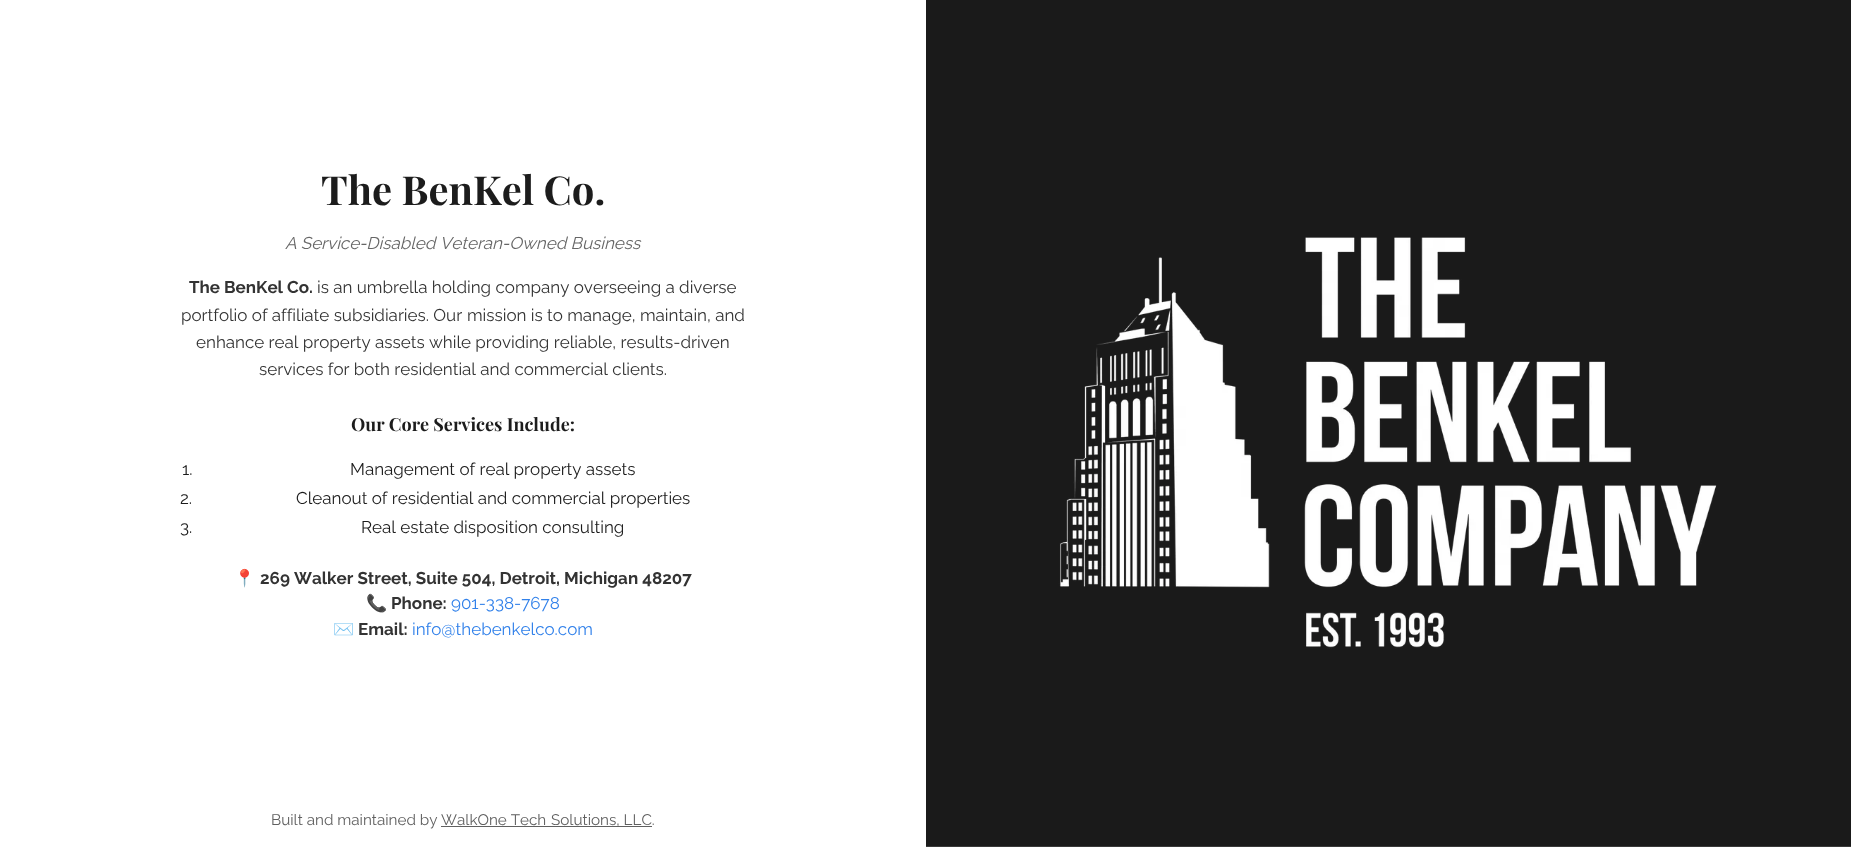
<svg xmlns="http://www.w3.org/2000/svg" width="1851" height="847">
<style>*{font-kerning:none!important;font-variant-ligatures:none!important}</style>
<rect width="100%" height="100%" fill="#fff"/>
<text x="321" y="205" style="font-family:Playfair Display;font-size:40px;font-weight:bold;fill:#1c1c1c">The BenKel Co.</text>
<text x="285" y="249" style="font-family:Raleway;font-size:17px;font-style:italic;fill:#666">A Service-Disabled Veteran-Owned Business</text>
<text x="189" y="293" style="font-family:Raleway;font-size:17px;font-weight:bold;fill:#333">The BenKel Co.</text>
<text x="317" y="293" style="font-family:Raleway;font-size:17px;fill:#333">is an umbrella holding company overseeing a diverse</text>
<text x="181" y="321" style="font-family:Raleway;font-size:17px;fill:#333">portfolio of affiliate subsidiaries. Our</text>
<text x="467" y="321" style="font-family:Raleway;font-size:17px;fill:#333">mission is to manage, maintain, and</text>
<text x="196" y="348" style="font-family:Raleway;font-size:17px;fill:#333">enhance real property assets while providing reliable, results-driven</text>
<text x="259" y="375" style="font-family:Raleway;font-size:17px;fill:#333">services for both residential and commercial clients.</text>
<text x="351" y="431" style="font-family:Playfair Display;font-size:18px;font-weight:bold;fill:#1c1c1c">Our Core Services Include:</text>
<text x="182" y="475" style="font-family:Raleway;font-size:17px;fill:#1c1c1c">1.</text>
<text x="350" y="475" style="font-family:Raleway;font-size:17px;fill:#1c1c1c">Management of real property assets</text>
<text x="180" y="504" style="font-family:Raleway;font-size:17px;fill:#1c1c1c">2.</text>
<text x="296" y="504" style="font-family:Raleway;font-size:17px;fill:#1c1c1c">Cleanout of residential and commercial properties</text>
<text x="180" y="533" style="font-family:Raleway;font-size:17px;fill:#1c1c1c">3.</text>
<text x="361" y="533" style="font-family:Raleway;font-size:17px;fill:#1c1c1c">Real estate disposition consulting</text>
<text x="234" y="584" style="font-family:Noto Color Emoji;font-size:17px;fill:#333">📍</text>
<text x="260" y="584" style="font-family:Raleway;font-size:17px;font-weight:bold;fill:#333">269 Walker Street, Suite 504, Detroit, Michigan 48207</text>
<text x="366" y="609" style="font-family:Noto Color Emoji;font-size:17px;fill:#333">📞</text>
<text x="391" y="609" style="font-family:Raleway;font-size:17px;font-weight:bold;fill:#333">Phone:</text>
<text x="451" y="609" style="font-family:Raleway;font-size:17px;fill:#3181ea">901-338-7678</text>
<text x="333" y="635" style="font-family:Noto Color Emoji;font-size:17px;fill:#333">✉️</text>
<text x="358" y="635" style="font-family:Raleway;font-size:17px;font-weight:bold;fill:#333">Email:</text>
<text x="412" y="635" style="font-family:Raleway;font-size:17px;fill:#3181ea">info@thebenkelco.com</text>
<text x="271" y="825" style="font-family:Raleway;font-size:15.25px;fill:#606060">Built and maintained by</text>
<rect x="441" y="826" width="211" height="1" fill="#606060"/>
<text x="441" y="825" style="font-family:Raleway;font-size:15.25px;fill:#606060">WalkOne Tech</text>
<text x="551" y="825" style="font-family:Raleway;font-size:15.25px;fill:#606060">Solutions, LLC.</text>
<image x="926" y="0" width="925" height="847" href="media/1.png"/>
</svg>
